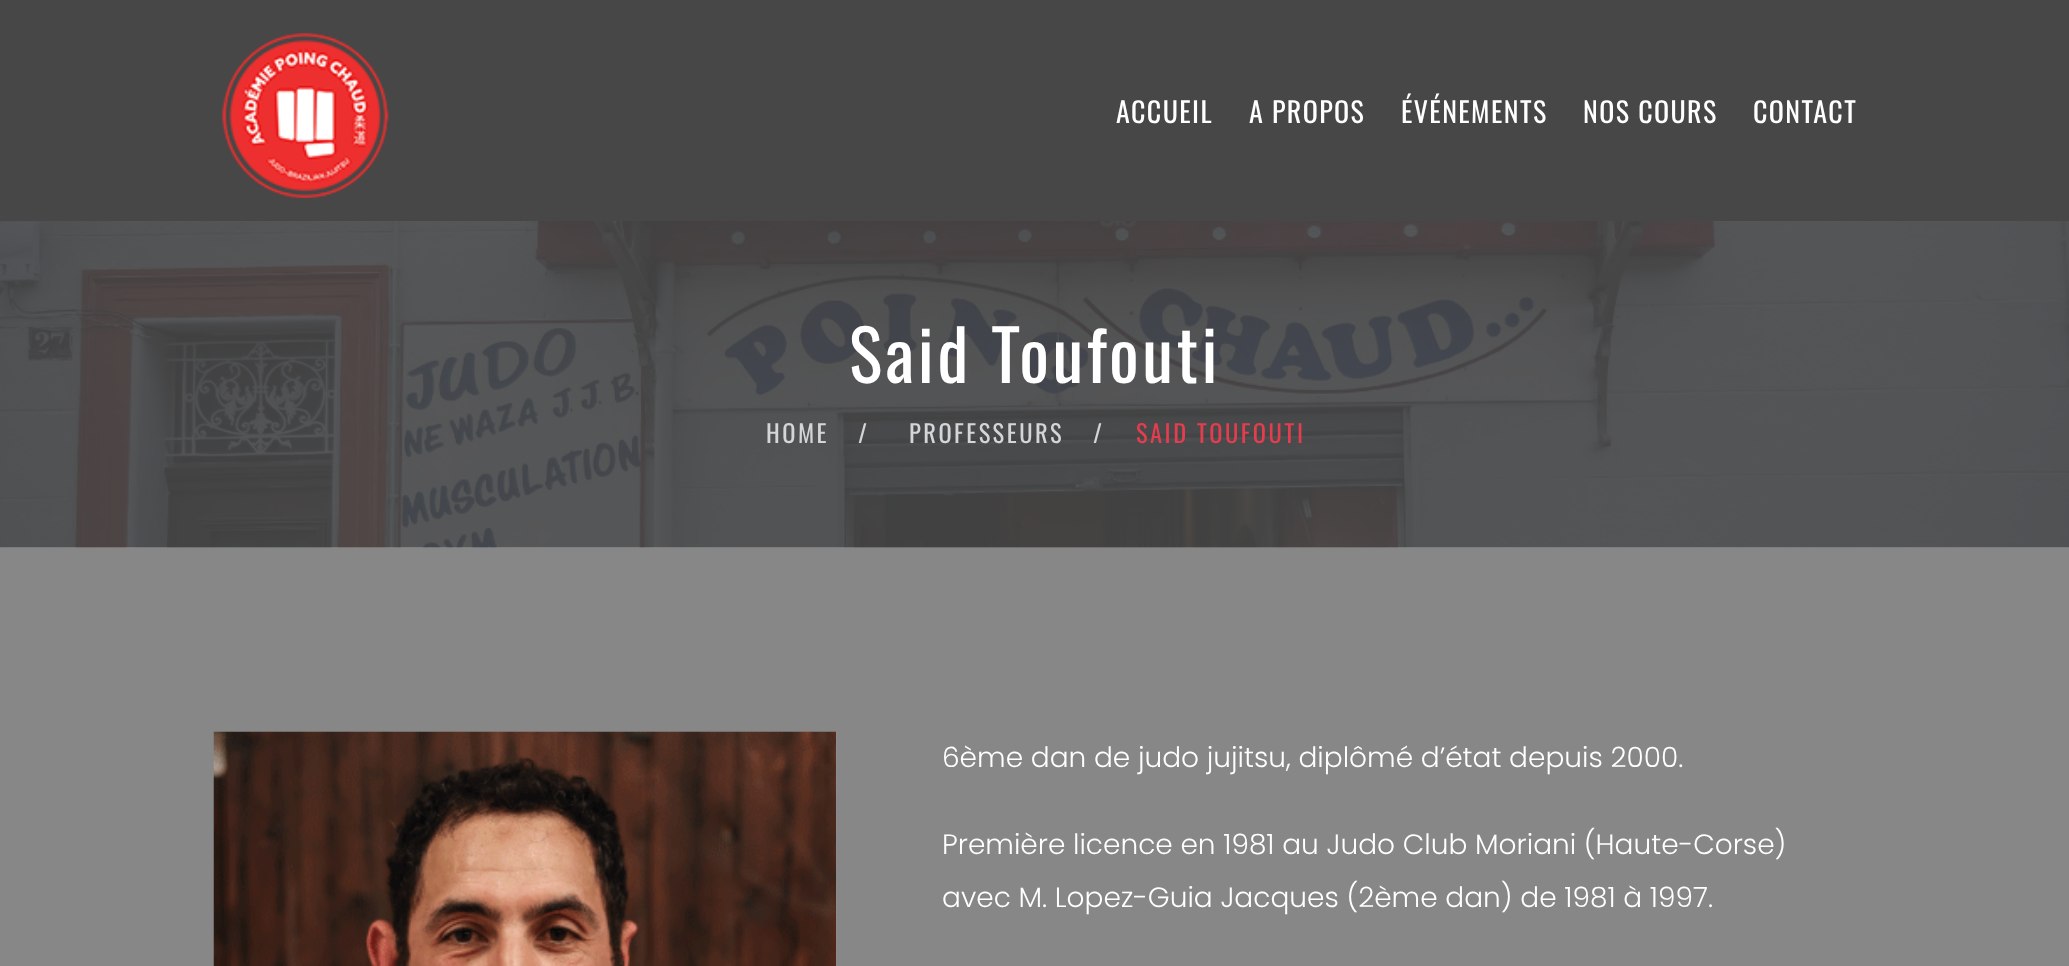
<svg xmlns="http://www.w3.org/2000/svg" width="2069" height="966">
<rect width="100%" height="100%" fill="#fff"/>
<rect width="2069" height="221" fill="#474747"/>
<image x="221" y="32" width="168" height="166" href="media/1.png"/>
<text x="1116" y="123" style="font-family:Oswald;font-size:28px;letter-spacing:1.4px;fill:#fff">ACCUEIL</text>
<text x="1249" y="123" style="font-family:Oswald;font-size:28px;letter-spacing:1.4px;fill:#fff">A PROPOS</text>
<text x="1401" y="123" style="font-family:Oswald;font-size:28px;letter-spacing:1.4px;fill:#fff">ÉVÉNEMENTS</text>
<text x="1583" y="123" style="font-family:Oswald;font-size:28px;letter-spacing:1.4px;fill:#fff">NOS COURS</text>
<text x="1753" y="123" style="font-family:Oswald;font-size:28px;letter-spacing:1.4px;fill:#fff">CONTACT</text>
<image x="0" y="221" width="2069" height="327" href="media/2.png"/>
<text x="849" y="383" style="font-family:Oswald;font-size:70px;letter-spacing:3.5px;fill:#fff">Said Toufouti</text>
<text x="766" y="443" style="font-family:Oswald;font-size:24.5px;letter-spacing:2.5px;fill:#d4d5d7">HOME</text>
<text x="858" y="443" style="font-family:Oswald;font-size:24.5px;letter-spacing:2.5px;fill:#d4d5d7">/</text>
<text x="909" y="443" style="font-family:Oswald;font-size:24.5px;letter-spacing:2.5px;fill:#d4d5d7">PROFESSEURS</text>
<text x="1093" y="443" style="font-family:Oswald;font-size:24.5px;letter-spacing:2.5px;fill:#d4d5d7">/</text>
<text x="1136" y="443" style="font-family:Oswald;font-size:24.5px;letter-spacing:2.5px;fill:#e43d4e">SAID TOUFOUTI</text>
<rect y="548" width="2069" height="418" fill="#878787"/>
<rect x="836" y="732" width="1" height="234" fill="#a4a9b9"/>
<image x="213" y="731" width="624" height="235" href="media/3.png"/>
<text x="942" y="767" style="font-family:Poppins;font-size:28px;font-weight:300;fill:#fff">6ème dan de judo jujitsu, diplômé d’état depuis 2000.</text>
<text x="942" y="854" style="font-family:Poppins;font-size:28px;font-weight:300;fill:#fff">Première licence en 1981 au Judo Club Moriani (Haute-Corse)</text>
<text x="942" y="907" style="font-family:Poppins;font-size:28px;font-weight:300;fill:#fff">avec M. Lopez-Guia Jacques (2ème dan) de 1981 à 1997.</text>
</svg>
